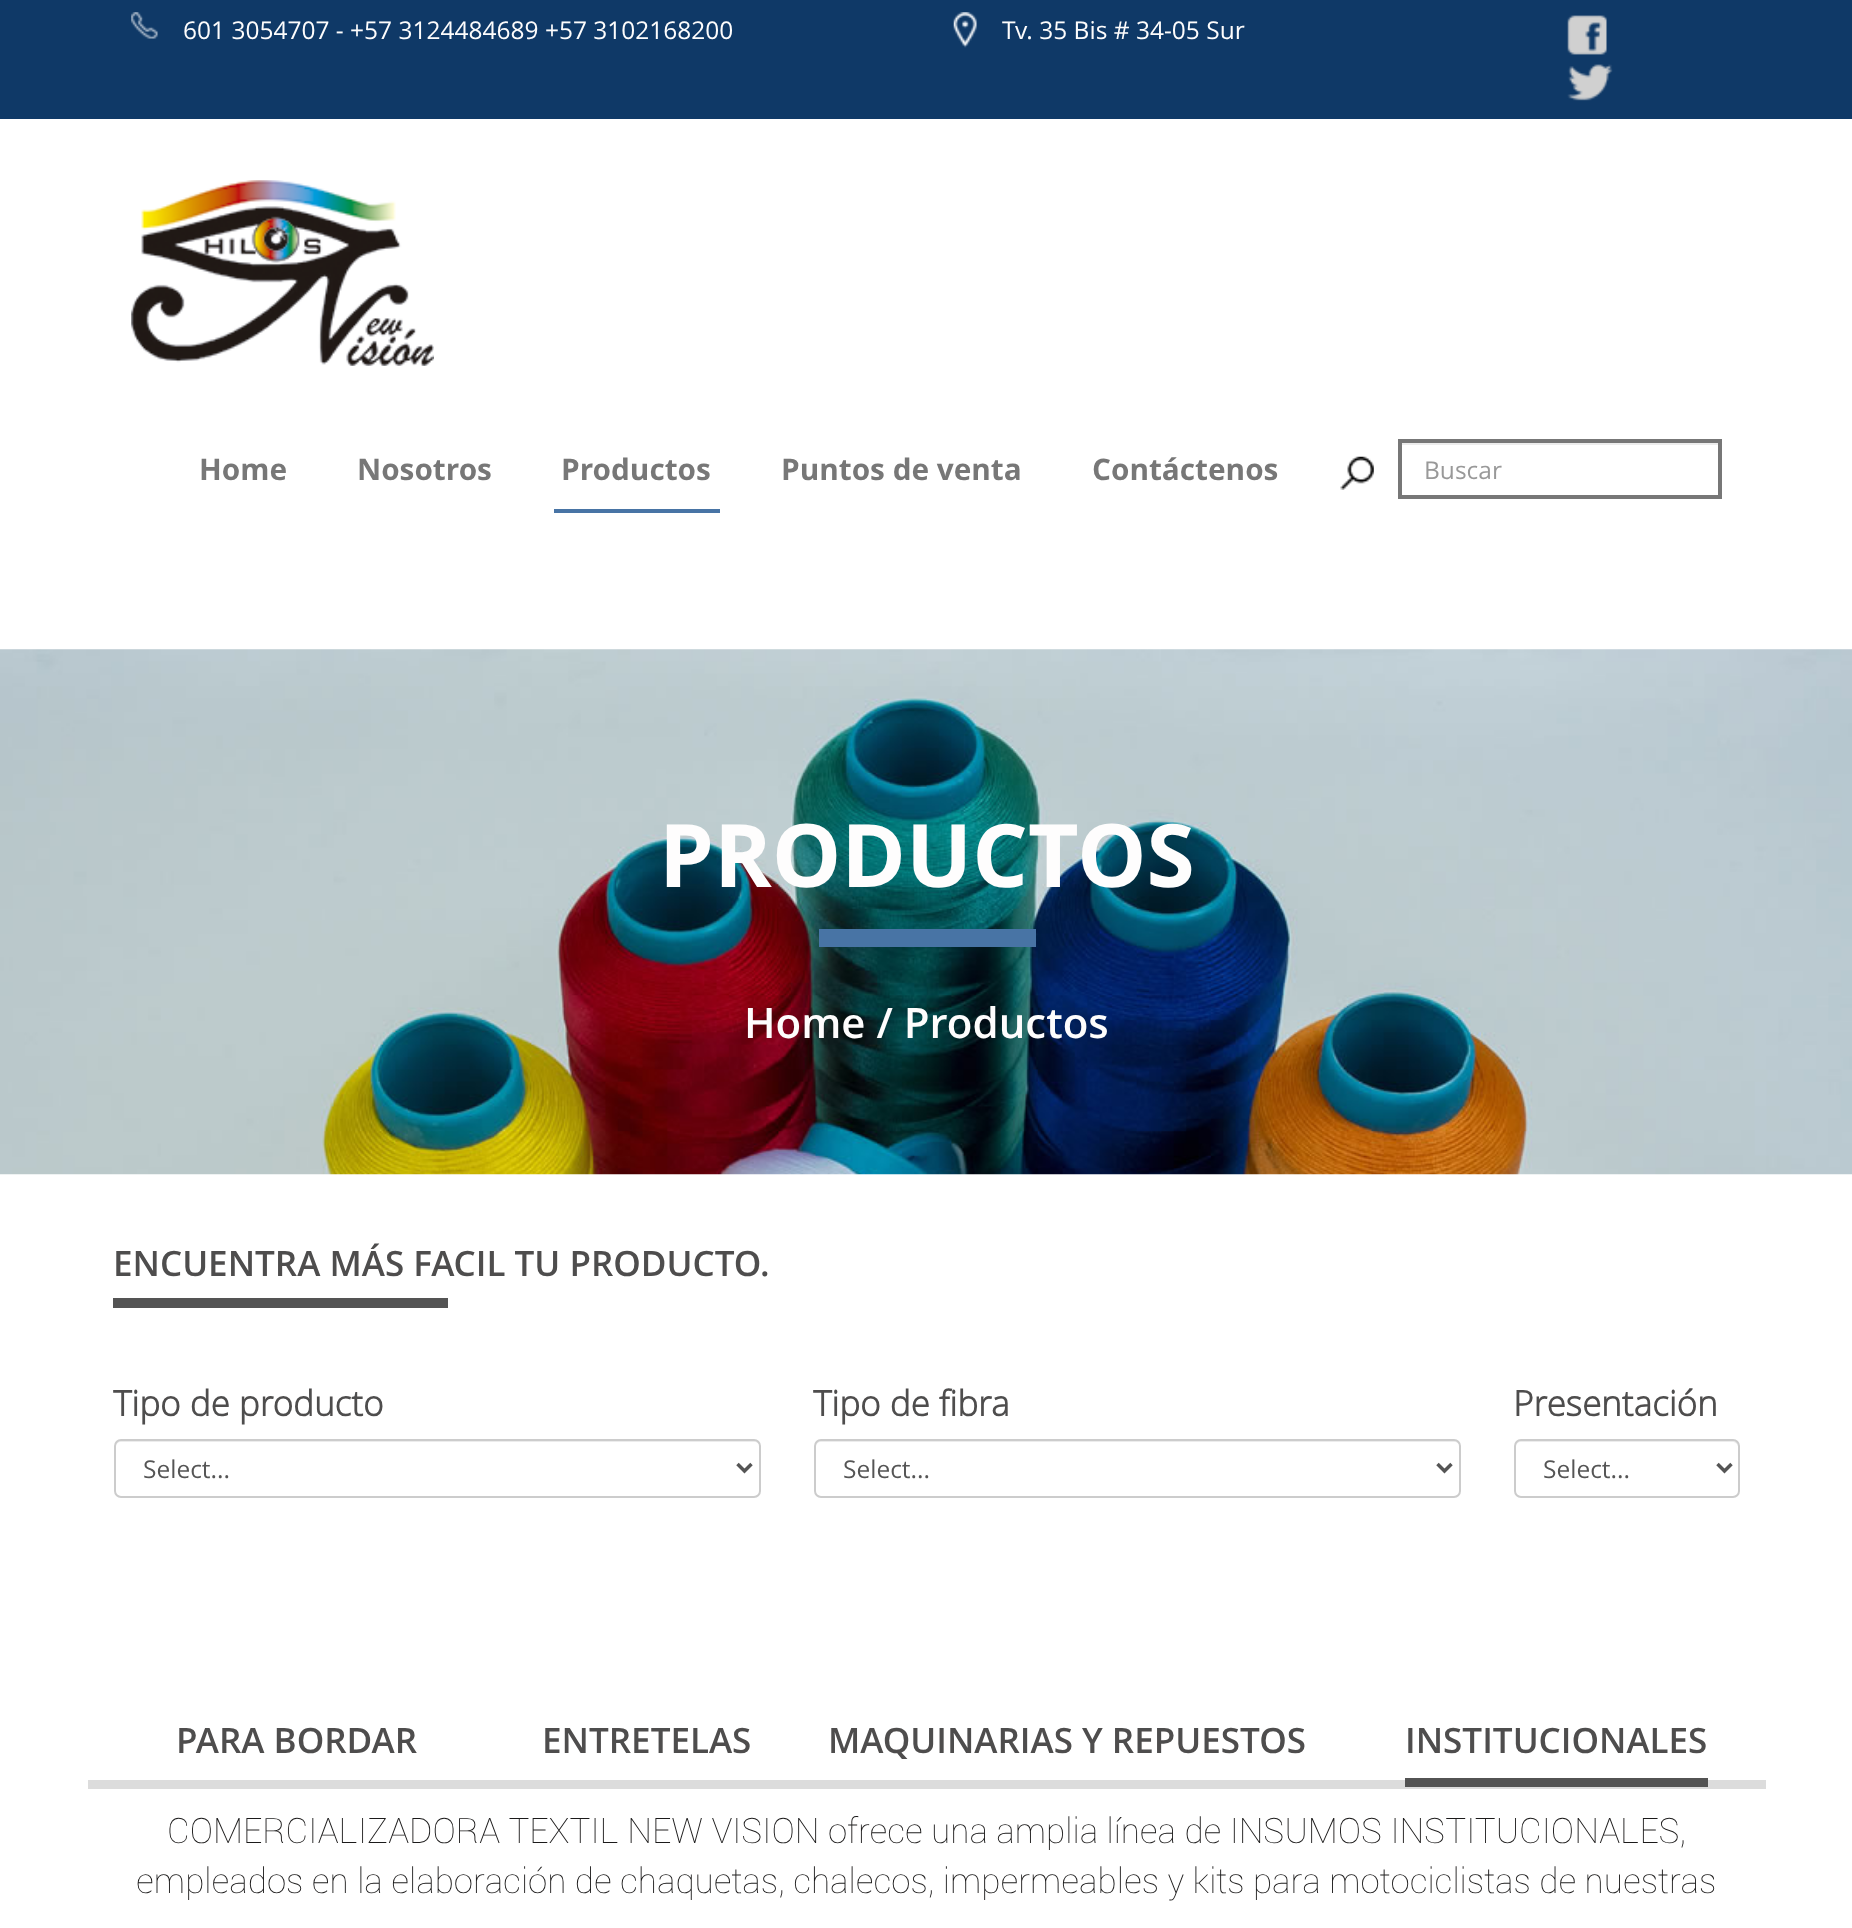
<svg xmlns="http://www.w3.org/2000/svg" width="1852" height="1928">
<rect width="100%" height="100%" fill="#fff"/>
<rect width="1852" height="119" fill="#0f3967"/>
<image x="131" y="12" width="27" height="27" href="media/1.png"/>
<text x="183" y="39" style="font-family:Open Sans;font-size:24.5px;fill:#fefdfd">601 3054707 - +57 3124484689 +57 3102168200</text>
<image x="953" y="12" width="24" height="36" href="media/2.png"/>
<text x="1002" y="39" style="font-family:Open Sans;font-size:24.5px;fill:#fefdfd">Tv. 35 Bis # 34-05 Sur</text>
<image x="1567" y="15" width="40" height="40" href="media/3.png"/>
<image x="1567" y="64" width="46" height="37" href="media/4.png"/>
<image x="131" y="180" width="303" height="186" href="media/5.png"/>
<text x="199" y="480" style="font-family:Open Sans;font-size:29.75px;font-weight:bold;fill:#777">Home</text>
<text x="357" y="480" style="font-family:Open Sans;font-size:29.75px;font-weight:bold;fill:#777">Nosotros</text>
<rect x="554" y="509" width="166" height="4" fill="#4874a5"/>
<text x="561" y="480" style="font-family:Open Sans;font-size:29.75px;font-weight:bold;fill:#777">Productos</text>
<text x="781" y="480" style="font-family:Open Sans;font-size:29.75px;font-weight:bold;fill:#777">Puntos de venta</text>
<text x="1092" y="480" style="font-family:Open Sans;font-size:29.75px;font-weight:bold;fill:#777">Contáctenos</text>
<image x="1340" y="456" width="34" height="34" href="media/6.png"/>
<rect x="1402" y="443" width="317" height="2" fill="#ececec"/>
<rect x="1400" y="441" width="320" height="56" fill="none" stroke="#777" stroke-width="4"/>
<text x="1424" y="479" style="font-family:Open Sans;font-size:24.5px;fill:#999">Buscar</text>
<image x="0" y="649" width="1852" height="526" href="media/7.png"/>
<rect x="819" y="929" width="217" height="18" fill="#4874a5"/>
<text x="659" y="887" style="font-family:Open Sans;font-size:87.5px;font-weight:bold;fill:#fefdfd">PRODUCTOS</text>
<text x="744" y="1038" style="font-family:Open Sans;font-size:42px;font-weight:600;fill:#fefdfd">Home / Productos</text>
<rect x="113" y="1298" width="335" height="10" fill="#545454"/>
<text x="113" y="1276" style="font-family:Open Sans;font-size:35px;font-weight:600;fill:#4e4d4d">ENCUENTRA MÁS FACIL TU PRODUCTO.</text>
<text x="113" y="1416" style="font-family:'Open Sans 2';font-size:35px;font-weight:bold;fill:#4e4d4d">Tipo de producto</text>
<path d="M121 1442h633c3 0 6 2 6 5v-2c0-3-2-5-5-5h-634c-3 0-5 2-5 5v2c0-3 2-5 5-5z" fill="#ececec"/>
<rect x="115" y="1440" width="645" height="57" rx="6" fill="none" stroke="#ccc" stroke-width="2"/>
<path d="M737.5 1464l7 7l7-7" fill="none" stroke="#555" stroke-width="3.5"/>
<text x="143" y="1478" style="font-family:Open Sans;font-size:24.5px;fill:#555">Select...</text>
<text x="813" y="1416" style="font-family:'Open Sans 2';font-size:35px;font-weight:bold;fill:#4e4d4d">Tipo de fibra</text>
<path d="M821 1442h633c3 0 6 2 6 5v-2c0-3-2-5-5-5h-634c-3 0-5 2-5 5v2c0-3 2-5 5-5z" fill="#ececec"/>
<rect x="815" y="1440" width="645" height="57" rx="6" fill="none" stroke="#ccc" stroke-width="2"/>
<path d="M1437.5 1464l7 7l7-7" fill="none" stroke="#555" stroke-width="3.5"/>
<text x="843" y="1478" style="font-family:Open Sans;font-size:24.5px;fill:#555">Select...</text>
<text x="1513" y="1416" style="font-family:'Open Sans 2';font-size:35px;font-weight:bold;fill:#4e4d4d">Presentación</text>
<path d="M1521 1442h211c3 0 6 2 6 5v-2c0-3-2-5-5-5h-212c-3 0-5 2-5 5v2c0-3 2-5 5-5z" fill="#ececec"/>
<rect x="1515" y="1440" width="224" height="57" rx="6" fill="none" stroke="#ccc" stroke-width="2"/>
<path d="M1717.5 1464l7 7l7-7" fill="none" stroke="#555" stroke-width="3.5"/>
<text x="1543" y="1478" style="font-family:Open Sans;font-size:24.5px;fill:#555">Select...</text>
<rect x="88" y="1780" width="1678" height="9" fill="#dcdcdc"/>
<text x="176" y="1753" style="font-family:Open Sans;font-size:35px;font-weight:600;fill:#4e4d4d">PARA BORDAR</text>
<text x="542" y="1753" style="font-family:Open Sans;font-size:35px;font-weight:600;fill:#4e4d4d">ENTRETELAS</text>
<text x="828" y="1753" style="font-family:Open Sans;font-size:35px;font-weight:600;fill:#4e4d4d">MAQUINARIAS Y REPUESTOS</text>
<text x="1405" y="1753" style="font-family:Open Sans;font-size:35px;font-weight:600;fill:#4e4d4d">INSTITUCIONALES</text>
<rect x="1405" y="1778" width="303" height="9" fill="#535353"/>
<text x="167" y="1843" style="font-family:Roboto;font-size:35px;font-weight:100;fill:#1b1a1a">COMERCIALIZADORA TEXTIL NEW VISION ofrece una amplia línea de INSUMOS INSTITUCIONALES,</text>
<text x="136" y="1893" style="font-family:Roboto;font-size:35px;font-weight:100;fill:#1b1a1a">empleados en la elaboración de chaquetas, chalecos, impermeables y kits para motociclistas de nuestras</text>
</svg>
